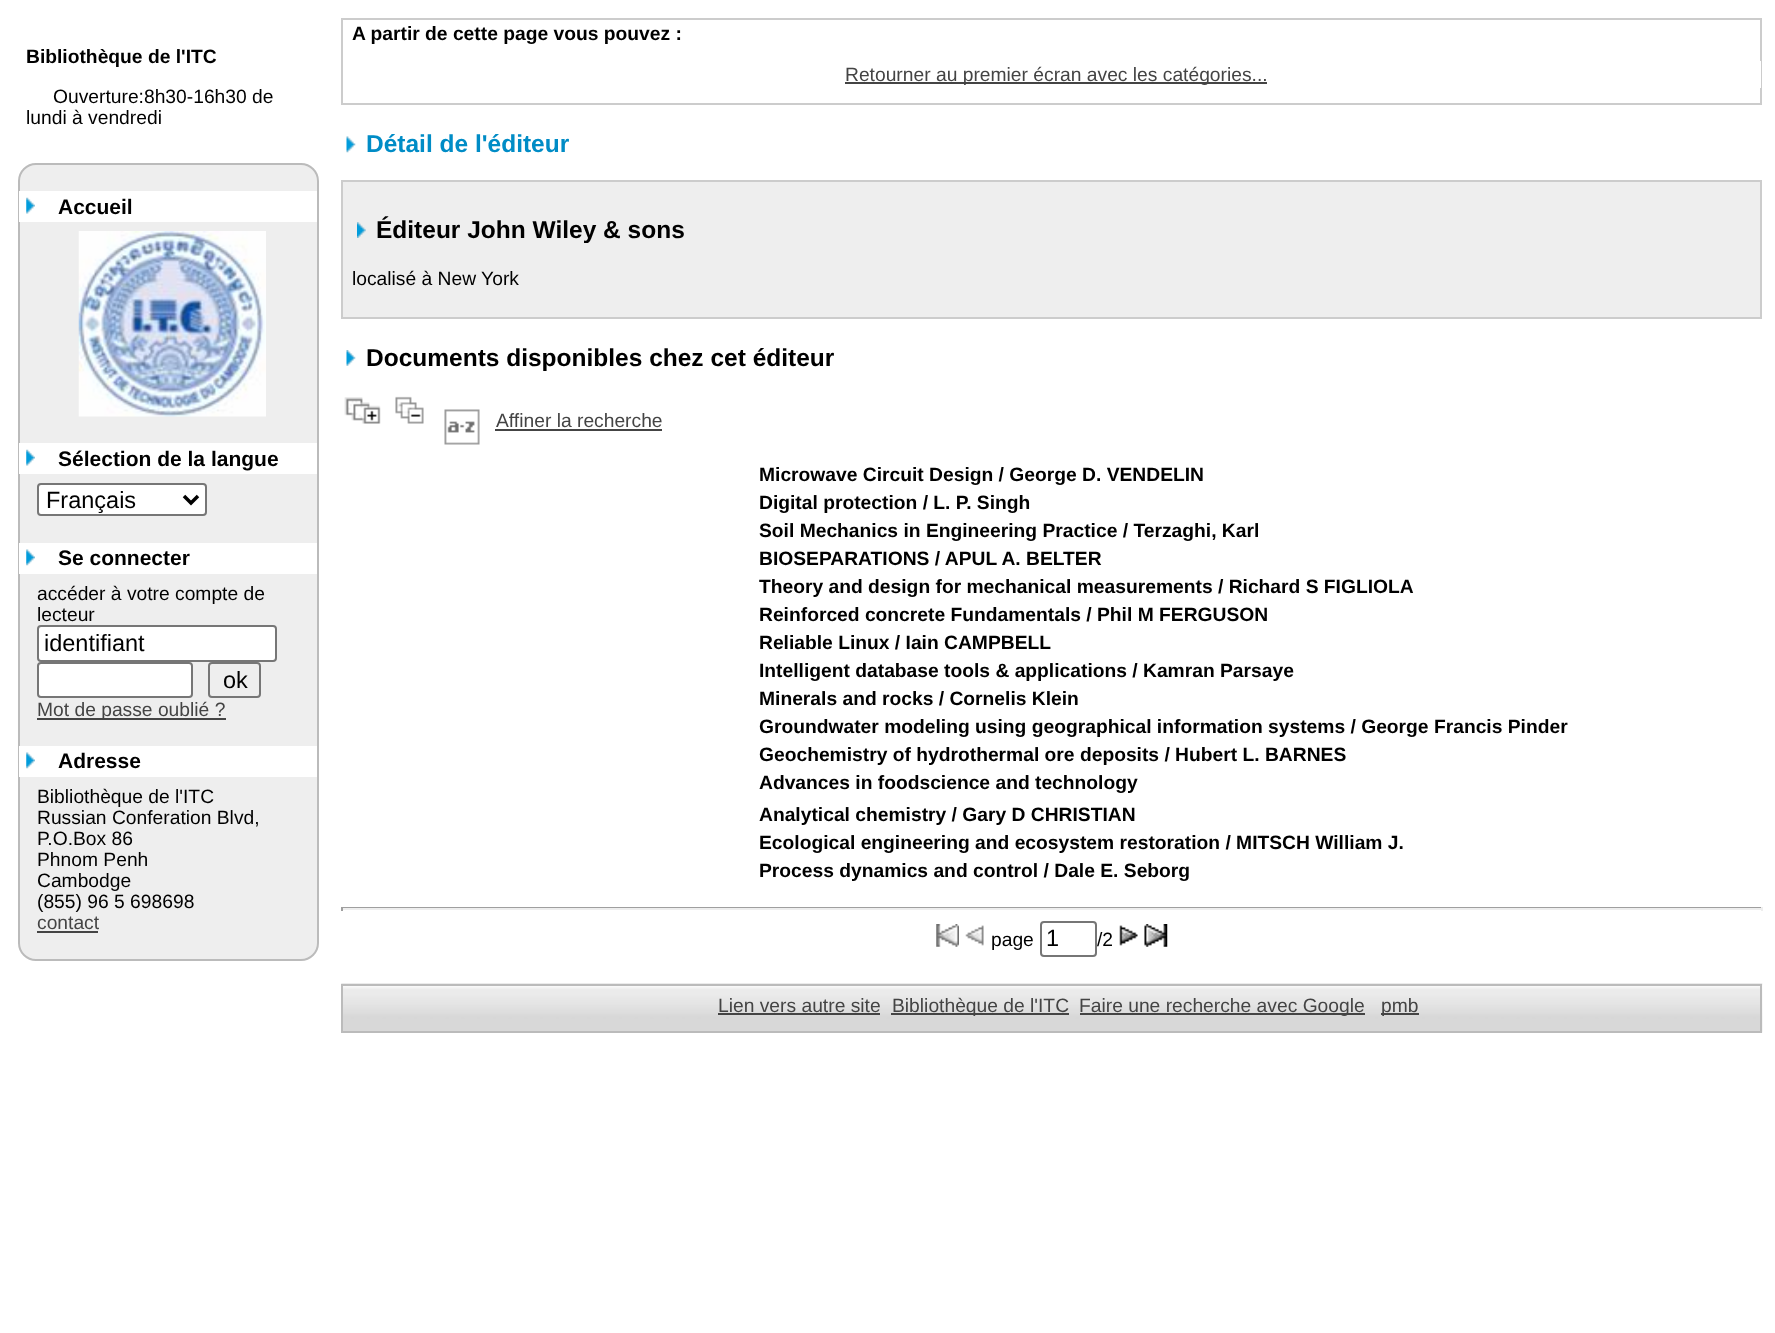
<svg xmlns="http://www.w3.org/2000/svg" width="1775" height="1333">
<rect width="100%" height="100%" fill="#fff"/>
<text x="26" y="63" style="font-family:Liberation Sans;font-size:19.25px;font-weight:bold;fill:#000">Bibliothèque de l'ITC</text>
<text x="53" y="103" style="font-family:Liberation Sans;font-size:19.25px;fill:#000">Ouverture:8h30-16h30 de</text>
<text x="26" y="124" style="font-family:Liberation Sans;font-size:19.25px;fill:#000">lundi à vendredi</text>
<rect x="342" y="19" width="1419" height="85" fill="none" stroke="#ccc" stroke-width="2"/>
<text x="352" y="40" style="font-family:Liberation Sans;font-size:19.25px;font-weight:bold;fill:#000">A partir de cette page vous pouvez :</text>
<rect x="1760" y="61" width="1" height="27" fill="#fff"/>
<rect x="845" y="82" width="422" height="2" fill="#444"/>
<text x="845" y="81" style="font-family:Liberation Sans;font-size:19.25px;fill:#444">Retourner au premier écran avec les catégories...</text>
<image x="346" y="136" width="10" height="17" href="media/1.png"/>
<text x="366" y="152" style="font-family:Liberation Sans;font-size:24.5px;font-weight:bold;fill:#008cc6">Détail de l'éditeur</text>
<rect x="342" y="181" width="1419" height="137" fill="#eee" stroke="#ccc" stroke-width="2"/>
<image x="357" y="222" width="9" height="16" href="media/2.png"/>
<text x="376" y="238" style="font-family:Liberation Sans;font-size:24.5px;font-weight:bold;fill:#000">Éditeur John Wiley &amp; sons</text>
<text x="352" y="285" style="font-family:Liberation Sans;font-size:19.25px;fill:#000">localisé à New York</text>
<image x="346" y="350" width="10" height="16" href="media/3.png"/>
<text x="366" y="366" style="font-family:Liberation Sans;font-size:24.5px;font-weight:bold;fill:#000">Documents disponibles chez cet éditeur</text>
<image x="344" y="397" width="37" height="27" href="media/4.png"/>
<image x="395" y="396" width="29" height="28" href="media/5.png"/>
<image x="444" y="409" width="36" height="36" href="media/6.png"/>
<text x="496" y="427" style="font-family:Liberation Sans;font-size:19.25px;fill:#444">Affiner la recherche</text>
<rect x="495" y="429" width="167" height="2" fill="#444"/>
<text x="759" y="481" style="font-family:Liberation Sans;font-size:19.25px;font-weight:bold;fill:#000">Microwave Circuit Design / George D. VENDELIN</text>
<text x="759" y="509" style="font-family:Liberation Sans;font-size:19.25px;font-weight:bold;fill:#000">Digital protection / L. P. Singh</text>
<text x="759" y="537" style="font-family:Liberation Sans;font-size:19.25px;font-weight:bold;fill:#000">Soil Mechanics in Engineering Practice / Terzaghi, Karl</text>
<text x="759" y="565" style="font-family:Liberation Sans;font-size:19.25px;font-weight:bold;fill:#000">BIOSEPARATIONS / APUL A. BELTER</text>
<text x="759" y="593" style="font-family:Liberation Sans;font-size:19.25px;font-weight:bold;fill:#000">Theory and design for mechanical measurements / Richard S FIGLIOLA</text>
<text x="759" y="621" style="font-family:Liberation Sans;font-size:19.25px;font-weight:bold;fill:#000">Reinforced concrete Fundamentals / Phil M FERGUSON</text>
<text x="759" y="649" style="font-family:Liberation Sans;font-size:19.25px;font-weight:bold;fill:#000">Reliable Linux / Iain CAMPBELL</text>
<text x="759" y="677" style="font-family:Liberation Sans;font-size:19.25px;font-weight:bold;fill:#000">Intelligent database tools &amp; applications / Kamran Parsaye</text>
<text x="759" y="705" style="font-family:Liberation Sans;font-size:19.25px;font-weight:bold;fill:#000">Minerals and rocks / Cornelis Klein</text>
<text x="759" y="733" style="font-family:Liberation Sans;font-size:19.25px;font-weight:bold;fill:#000">Groundwater modeling using geographical information systems / George Francis Pinder</text>
<text x="759" y="761" style="font-family:Liberation Sans;font-size:19.25px;font-weight:bold;fill:#000">Geochemistry of hydrothermal ore deposits / Hubert L. BARNES</text>
<text x="759" y="789" style="font-family:Liberation Sans;font-size:19.25px;font-weight:bold;fill:#000">Advances in foodscience and technology</text>
<text x="759" y="821" style="font-family:Liberation Sans;font-size:19.25px;font-weight:bold;fill:#000">Analytical chemistry / Gary D CHRISTIAN</text>
<text x="759" y="849" style="font-family:Liberation Sans;font-size:19.25px;font-weight:bold;fill:#000">Ecological engineering and ecosystem restoration / MITSCH William J.</text>
<text x="759" y="877" style="font-family:Liberation Sans;font-size:19.25px;font-weight:bold;fill:#000">Process dynamics and control / Dale E. Seborg</text>
<rect x="341" y="907" width="1421" height="1" fill="#9f9f9f"/>
<rect x="1761" y="907" width="2" height="4" fill="#eee"/>
<rect x="341" y="908" width="1421" height="2" fill="#eee"/>
<rect x="341" y="907" width="2" height="4" fill="#9f9f9f"/>
<image x="936" y="924" width="23" height="23" href="media/7.png"/>
<image x="965" y="925" width="19" height="21" href="media/8.png"/>
<text x="991" y="946" style="font-family:Liberation Sans;font-size:19.25px;fill:#000">page</text>
<rect x="1041" y="922" width="55" height="34" rx="3" fill="none" stroke="#767676" stroke-width="2"/>
<text x="1046" y="946" style="font-family:Liberation Sans;font-size:23.5px;fill:#000">1</text>
<text x="1097" y="946" style="font-family:Liberation Sans;font-size:19.25px;fill:#000">/2</text>
<image x="1119" y="925" width="19" height="21" href="media/9.png"/>
<image x="1144" y="924" width="24" height="23" href="media/10.png"/>
<image x="341" y="983" width="1422" height="50" href="media/11.png"/>
<rect x="342" y="985" width="1419" height="47" fill="none" stroke="#bbb" stroke-width="2"/>
<text x="718" y="1012" style="font-family:Liberation Sans;font-size:19.25px;fill:#444">Lien vers autre site</text>
<rect x="718" y="1013" width="162" height="2" fill="#444"/>
<rect x="891" y="1013" width="178" height="2" fill="#444"/>
<text x="892" y="1012" style="font-family:Liberation Sans;font-size:19.25px;fill:#444">Bibliothèque de l'ITC</text>
<rect x="1080" y="1013" width="285" height="2" fill="#444"/>
<text x="1079" y="1012" style="font-family:Liberation Sans;font-size:19.25px;fill:#444">Faire une recherche avec Google</text>
<rect x="1381" y="1013" width="38" height="2" fill="#444"/>
<text x="1381" y="1012" style="font-family:Liberation Sans;font-size:19.25px;fill:#444">pmb</text>
<rect x="19" y="164" width="299" height="796" rx="17" fill="#eee" stroke="#bbb" stroke-width="2"/>
<rect x="19" y="191" width="298" height="31" fill="#fff"/>
<image x="26" y="197" width="9" height="17" href="media/12.png"/>
<text x="58" y="214" style="font-family:Liberation Sans;font-size:21px;font-weight:bold;fill:#000">Accueil</text>
<image x="78" y="231" width="188" height="186" href="media/13.png"/>
<rect x="19" y="443" width="298" height="31" fill="#fff"/>
<image x="26" y="449" width="9" height="17" href="media/12.png"/>
<text x="58" y="466" style="font-family:Liberation Sans;font-size:21px;font-weight:bold;fill:#000">Sélection de la langue</text>
<rect x="38" y="484" width="168" height="31" rx="3" fill="#fff" stroke="#767676" stroke-width="2"/>
<path d="M184 496l7 7l7-7" fill="none" stroke="#000" stroke-width="3.5"/>
<text x="46" y="508" style="font-family:Liberation Sans;font-size:23.5px;fill:#000">Français</text>
<rect x="19" y="543" width="298" height="31" fill="#fff"/>
<image x="26" y="549" width="9" height="17" href="media/14.png"/>
<text x="58" y="565" style="font-family:Liberation Sans;font-size:21px;font-weight:bold;fill:#000">Se connecter</text>
<text x="37" y="600" style="font-family:Liberation Sans;font-size:19.25px;fill:#000">accéder à votre compte de</text>
<text x="37" y="621" style="font-family:Liberation Sans;font-size:19.25px;fill:#000">lecteur</text>
<rect x="38" y="626" width="238" height="35" rx="3" fill="#fff" stroke="#767676" stroke-width="2"/>
<text x="44" y="651" style="font-family:Liberation Sans;font-size:23.5px;fill:#000">identifiant</text>
<rect x="38" y="663" width="154" height="34" rx="3" fill="#fff" stroke="#767676" stroke-width="2"/>
<rect x="209" y="663" width="51" height="34" rx="3" fill="none" stroke="#767676" stroke-width="2"/>
<text x="223" y="688" style="font-family:Liberation Sans;font-size:23.5px;fill:#000">ok</text>
<rect x="37" y="718" width="189" height="2" fill="#444"/>
<text x="37" y="716" style="font-family:Liberation Sans;font-size:19.25px;fill:#444">Mot de passe oublié ?</text>
<rect x="19" y="746" width="298" height="31" fill="#fff"/>
<image x="26" y="752" width="9" height="17" href="media/14.png"/>
<text x="58" y="768" style="font-family:Liberation Sans;font-size:21px;font-weight:bold;fill:#000">Adresse</text>
<text x="37" y="803" style="font-family:Liberation Sans;font-size:19.25px;fill:#000">Bibliothèque de l'ITC</text>
<text x="37" y="824" style="font-family:Liberation Sans;font-size:19.25px;fill:#000">Russian Conferation Blvd,</text>
<text x="37" y="845" style="font-family:Liberation Sans;font-size:19.25px;fill:#000">P.O.Box 86</text>
<text x="37" y="866" style="font-family:Liberation Sans;font-size:19.25px;fill:#000">Phnom Penh</text>
<text x="37" y="887" style="font-family:Liberation Sans;font-size:19.25px;fill:#000">Cambodge</text>
<text x="37" y="908" style="font-family:Liberation Sans;font-size:19.25px;fill:#000">(855) 96 5 698698</text>
<text x="37" y="929" style="font-family:Liberation Sans;font-size:19.25px;fill:#444">contact</text>
<rect x="37" y="931" width="61" height="2" fill="#444"/>
</svg>
